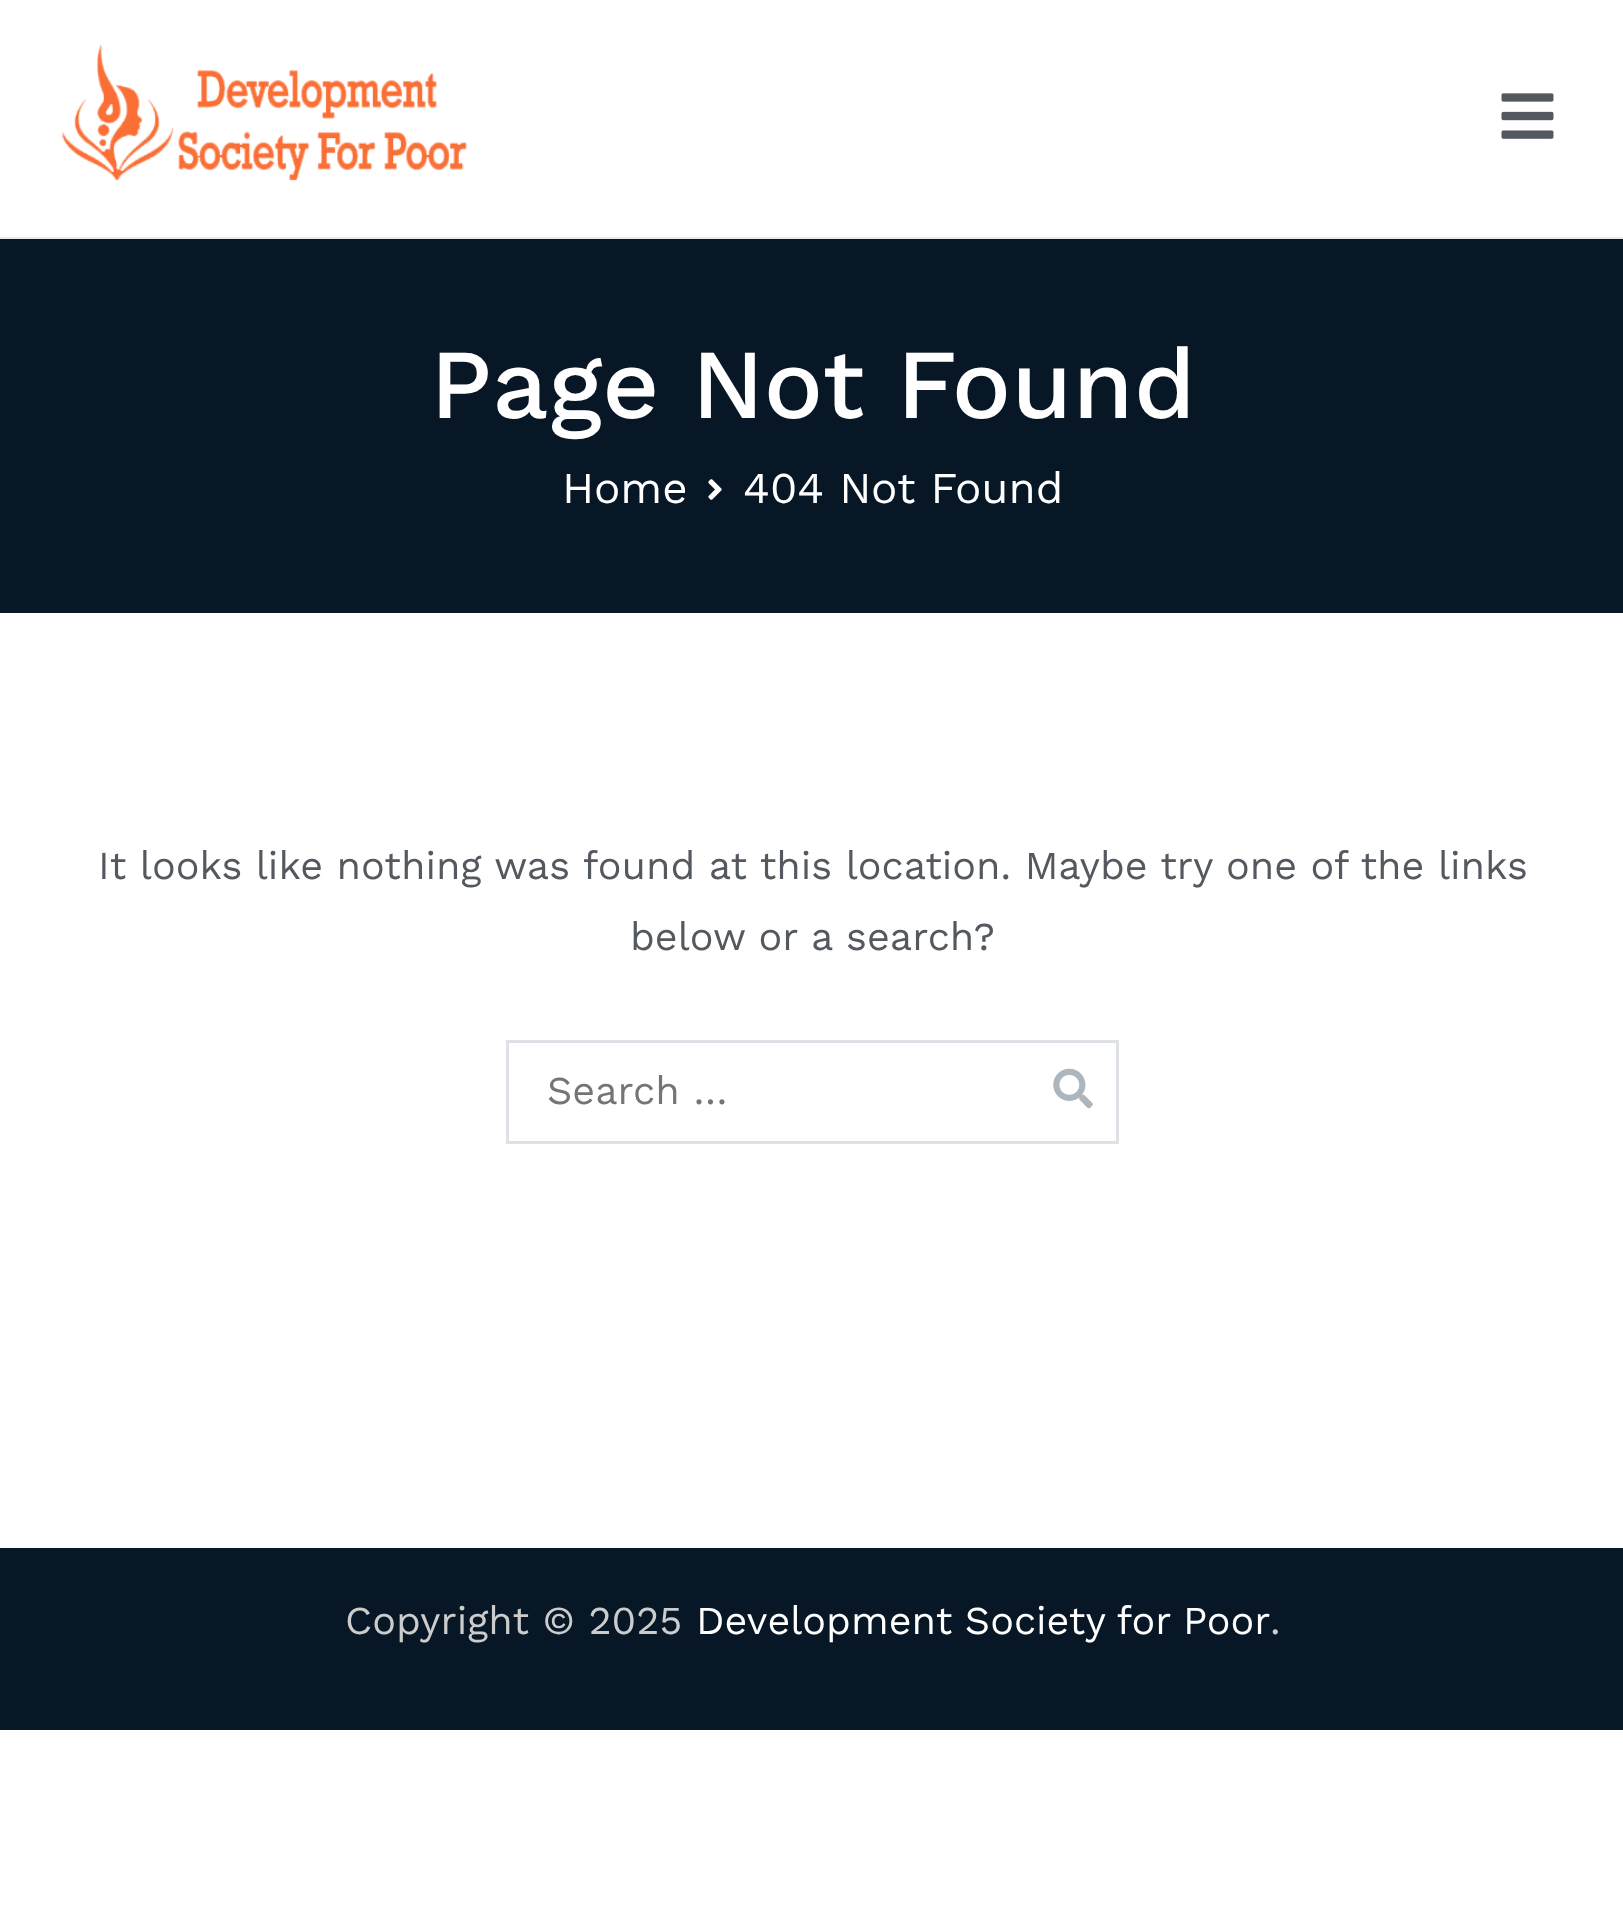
<svg xmlns="http://www.w3.org/2000/svg" width="1623" height="1924">
<rect width="100%" height="100%" fill="#fff"/>
<rect y="237" width="1623" height="2" fill="#e9ecef"/>
<image x="61" y="44" width="406" height="137" href="media/1.png"/>
<image x="1501" y="93" width="53" height="46" href="media/2.png"/>
<rect y="239" width="1623" height="374" fill="#081726"/>
<text x="430" y="418" style="font-family:Work Sans;font-size:99px;font-weight:500;fill:#fff">Page Not Found</text>
<text x="562" y="503" style="font-family:Work Sans;font-size:44px;fill:#fff">Home</text>
<image x="708" y="479" width="14" height="21" href="media/3.png"/>
<text x="743" y="503" style="font-family:Work Sans;font-size:44px;fill:#fff">404 Not Found</text>
<text x="98" y="879" style="font-family:Work Sans;font-size:39.6px;fill:#54595f">It looks like nothing was found at this location. Maybe try one of the links</text>
<text x="630" y="950" style="font-family:Work Sans;font-size:39.6px;fill:#54595f">below or a search?</text>
<rect x="507.5" y="1041.5" width="610" height="101" fill="none" stroke="#dee2e6" stroke-width="3"/>
<text x="547" y="1104" style="font-family:Work Sans;font-size:39.6px;fill:#757575">Search …</text>
<image x="1053" y="1068" width="40" height="41" href="media/4.png"/>
<rect y="1548" width="1623" height="182" fill="#081726"/>
<text x="345" y="1634" style="font-family:Work Sans;font-size:39.6px;fill:#ccc">Copyright © 2025</text>
<text x="696" y="1634" word-spacing="-1" style="font-family:Work Sans;font-size:39.6px;fill:#fff">Development Society for Poor</text>
<text x="1270" y="1634" style="font-family:Work Sans;font-size:39.6px;fill:#ccc">.</text>
</svg>
